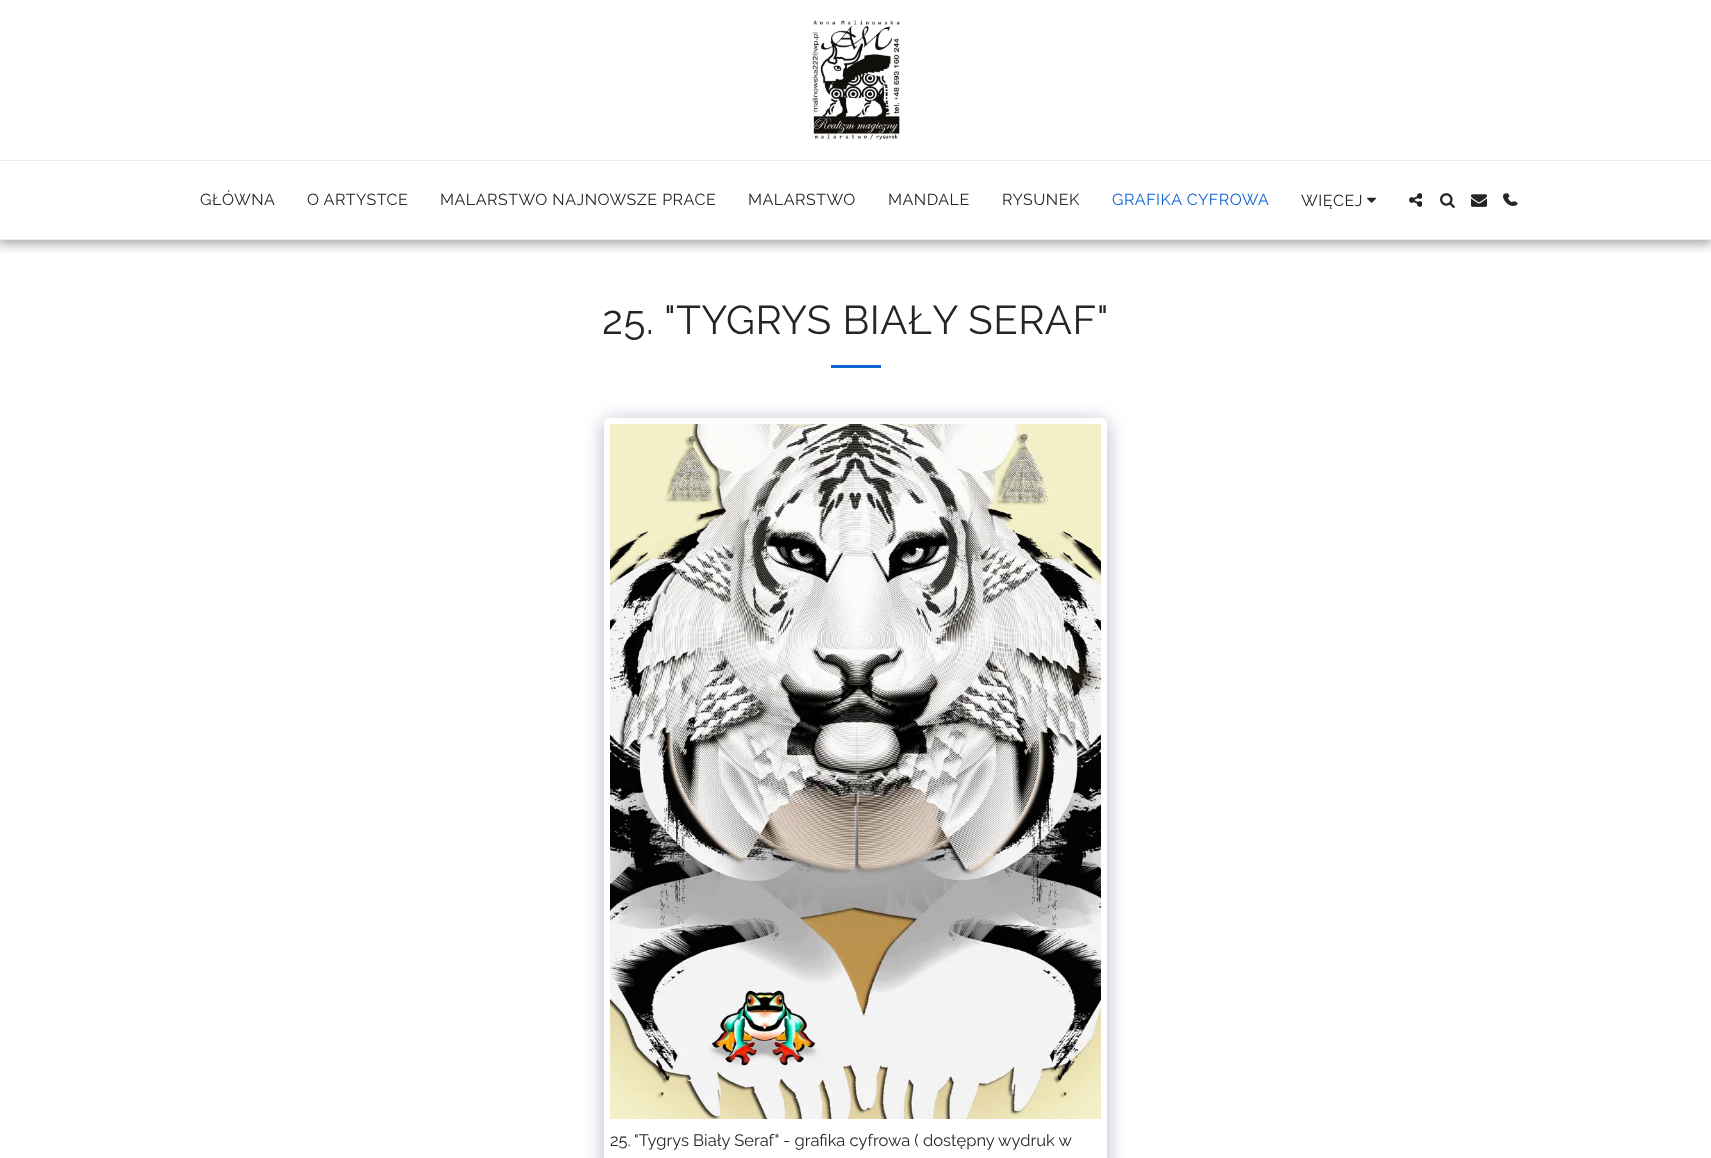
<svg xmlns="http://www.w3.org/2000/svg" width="1711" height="1158">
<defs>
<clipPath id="clip1"><rect x="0" y="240" width="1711" height="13"/></clipPath>
</defs>
<rect width="100%" height="100%" fill="#fff"/>
<g clip-path="url(#clip1)">
<rect x="-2" width="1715" height="244" fill="#00000059" filter="blur(6px)"/>
</g>
<rect y="239" width="1711" height="1" fill="#ebebeb"/>
<image x="812" y="20" width="88" height="120" href="media/1.png"/>
<rect y="160" width="1711" height="1" fill="#ebebeb"/>
<text x="200" y="205" style="font-family:Raleway;font-size:16px;letter-spacing:0.5px;fill:#252525">GŁÓWNA</text>
<text x="307" y="205" style="font-family:Raleway;font-size:16px;letter-spacing:0.5px;fill:#252525">O ARTYSTCE</text>
<text x="440" y="205" style="font-family:Raleway;font-size:16px;letter-spacing:0.5px;fill:#252525">MALARSTWO NAJNOWSZE PRACE</text>
<text x="748" y="205" style="font-family:Raleway;font-size:16px;letter-spacing:0.5px;fill:#252525">MALARSTWO</text>
<text x="888" y="205" style="font-family:Raleway;font-size:16px;letter-spacing:0.5px;fill:#252525">MANDALE</text>
<text x="1002" y="205" style="font-family:Raleway;font-size:16px;letter-spacing:0.5px;fill:#252525">RYSUNEK</text>
<text x="1112" y="205" style="font-family:Raleway;font-size:16px;letter-spacing:0.5px;fill:#0e63d6">GRAFIKA CYFROWA</text>
<text x="1301" y="206" style="font-family:Raleway;font-size:16px;letter-spacing:0.5px;fill:#252525">WIĘCEJ</text>
<image x="1367" y="197" width="10" height="6" href="media/2.png"/>
<image x="1409" y="193" width="13" height="14" href="media/3.png"/>
<image x="1440" y="193" width="15" height="15" href="media/4.png"/>
<image x="1471" y="194" width="16" height="13" href="media/5.png"/>
<image x="1505" y="193" width="13" height="13" href="media/6.png"/>
<image x="1503" y="193" width="12" height="13" href="media/7.png"/>
<text x="602" y="334" style="font-family:Raleway;font-size:40.25px;letter-spacing:0.5px;fill:#252525">25.</text>
<text x="664" y="334" style="font-family:Raleway;font-size:40.25px;letter-spacing:0.5px;fill:#252525">"TYGRYS BIAŁY SERAF"</text>
<rect x="831" y="365" width="50" height="3" fill="#0e63d6"/>
<rect x="604" y="421" width="503" height="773" rx="6" fill="#4d3f7a66" filter="blur(10px)"/>
<rect x="604" y="418" width="503" height="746" rx="6" fill="#fff"/>
<image x="610" y="424" width="491" height="695" href="media/8.png"/>
<text x="610" y="1146" style="font-family:Raleway;font-size:16.5px;fill:#252525">25.</text>
<text x="634" y="1146" style="font-family:Raleway;font-size:16.5px;fill:#252525">"Tygrys Biały Seraf" - grafika cyfrowa ( dostępny wydruk w</text>
</svg>
